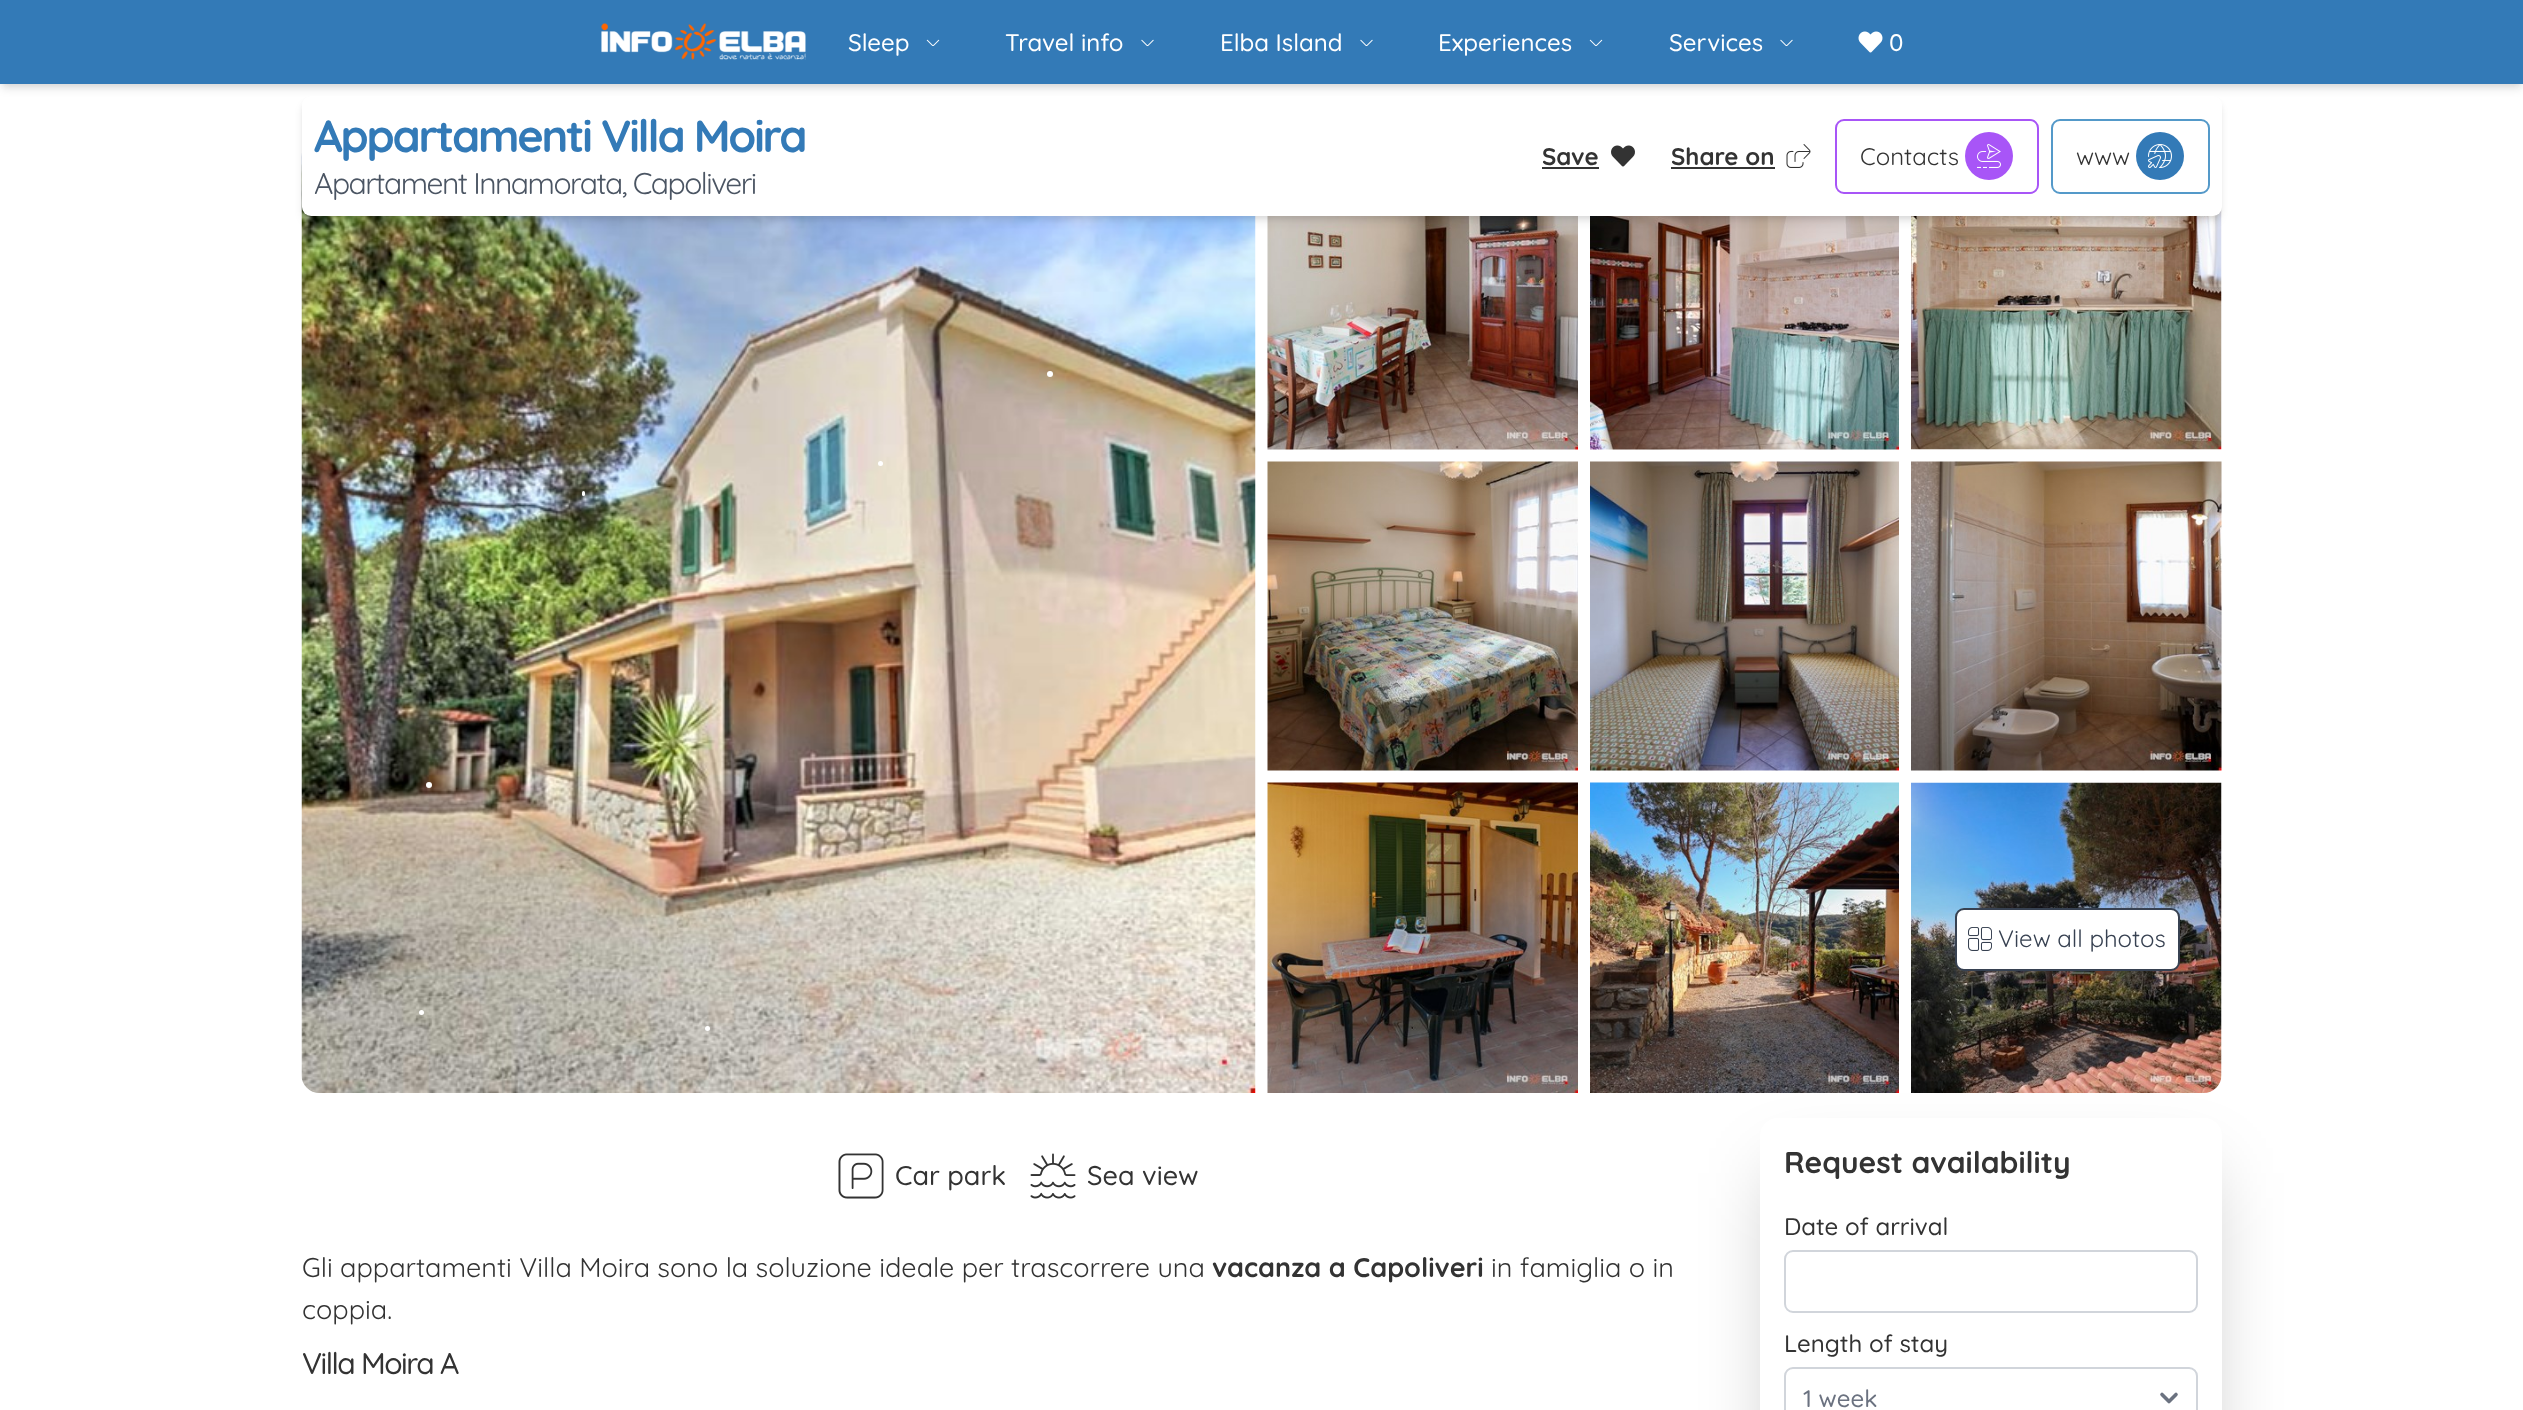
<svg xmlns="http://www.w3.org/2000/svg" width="2523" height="1410">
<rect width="100%" height="100%" fill="#fff"/>
<rect x="3" y="3" width="2517" height="81" fill="#0000001a" filter="blur(3px)"/>
<rect x="2" y="5" width="2520" height="84" fill="#0000001a" filter="blur(4.5px)"/>
<rect width="2523" height="84" fill="#337ab7"/>
<image x="601" y="23" width="205" height="37" href="media/1.png"/>
<text x="848" y="51" style="font-family:Quicksand;font-size:24px;font-weight:500;fill:#fff">Sleep</text>
<image x="926" y="39" width="14" height="7" href="media/2.png"/>
<text x="1005" y="51" style="font-family:Quicksand;font-size:24px;font-weight:500;fill:#fff">Travel info</text>
<image x="1141" y="39" width="13" height="8" href="media/3.png"/>
<text x="1220" y="51" style="font-family:Quicksand;font-size:24px;font-weight:500;fill:#fff">Elba Island</text>
<image x="1360" y="39" width="13" height="8" href="media/3.png"/>
<text x="1438" y="51" style="font-family:Quicksand;font-size:24px;font-weight:500;fill:#fff">Experiences</text>
<image x="1589" y="39" width="14" height="7" href="media/2.png"/>
<text x="1669" y="51" style="font-family:Quicksand;font-size:24px;font-weight:500;fill:#fff">Services</text>
<image x="1780" y="39" width="13" height="8" href="media/3.png"/>
<image x="1858" y="31" width="25" height="22" href="media/4.png"/>
<text x="1889" y="51" style="font-family:Quicksand;font-size:24px;font-weight:500;fill:#fff">0</text>
<image x="301" y="153" width="955" height="940" href="media/9.png"/>
<image x="1267" y="216" width="311" height="234" href="media/10.png"/>
<image x="1590" y="216" width="309" height="234" href="media/11.png"/>
<image x="1911" y="207" width="311" height="243" href="media/12.png"/>
<rect x="305" y="102" width="1914" height="114" rx="6" fill="#0000001a" filter="blur(3px)"/>
<rect x="303" y="104" width="1917" height="117" rx="8" fill="#0000001a" filter="blur(4.5px)"/>
<rect x="302" y="96" width="1920" height="120" rx="9" fill="#fff"/>
<text x="314" y="152" style="font-family:Quicksand;font-size:45px;font-weight:bold;letter-spacing:-2.25px;fill:#337ab7">Appartamenti Villa Moira</text>
<text x="314" y="194" style="font-family:Quicksand;font-size:30px;letter-spacing:-1.5px;fill:#4b5563">Apartament Innamorata, Capoliveri</text>
<text x="1542" y="165" style="font-family:Quicksand;font-size:24px;font-weight:bold;fill:#333">Save</text>
<rect x="1542" y="167" width="57" height="2" fill="#333"/>
<image x="1611" y="145" width="24" height="22" href="media/5.png"/>
<text x="1671" y="165" style="font-family:Quicksand;font-size:24px;font-weight:bold;fill:#333">Share on</text>
<rect x="1671" y="167" width="104" height="2" fill="#333"/>
<image x="1786" y="144" width="25" height="24" href="media/6.png"/>
<rect x="1836" y="120" width="202" height="73" rx="8" fill="none" stroke="#a855f7" stroke-width="2"/>
<text x="1860" y="165" style="font-family:Quicksand;font-size:24px;fill:#333">Contacts</text>
<circle cx="1989" cy="156" r="24" fill="#a855f7"/>
<image x="1977" y="144" width="24" height="24" href="media/7.png"/>
<rect x="2052" y="120" width="157" height="73" rx="8" fill="none" stroke="#5499c9" stroke-width="2"/>
<text x="2076" y="165" style="font-family:Quicksand;font-size:24px;fill:#333">www</text>
<circle cx="2160" cy="156" r="24" fill="#337ab7"/>
<image x="2148" y="144" width="24" height="24" href="media/8.png"/>
<image x="1267" y="461" width="311" height="310" href="media/13.png"/>
<image x="1590" y="461" width="309" height="310" href="media/14.png"/>
<image x="1911" y="461" width="311" height="310" href="media/15.png"/>
<image x="1267" y="782" width="311" height="311" href="media/16.png"/>
<image x="1590" y="782" width="309" height="311" href="media/17.png"/>
<image x="1911" y="782" width="311" height="311" href="media/18.png"/>
<rect x="1956" y="909" width="223" height="61" rx="8" fill="#fff" stroke="#374151" stroke-width="2"/>
<image x="1968" y="927" width="24" height="24" href="media/19.png"/>
<text x="1998" y="947" style="font-family:Quicksand;font-size:24px;fill:#374151">View all photos</text>
<image x="838" y="1153" width="46" height="46" href="media/20.png"/>
<text x="895" y="1185" style="font-family:Quicksand;font-size:27px;font-weight:500;fill:#333">Car park</text>
<image x="1030" y="1153" width="46" height="46" href="media/21.png"/>
<text x="1087" y="1185" style="font-family:Quicksand;font-size:27px;font-weight:500;fill:#333">Sea view</text>
<text x="302" y="1277" style="font-family:Quicksand;font-size:27px;fill:#333">Gli appartamenti Villa Moira sono la soluzione ideale per trascorrere una</text>
<text x="1212" y="1277" style="font-family:Quicksand;font-size:27px;font-weight:bold;fill:#333">vacanza a Capoliveri</text>
<text x="1491" y="1277" style="font-family:Quicksand;font-size:27px;fill:#333">in famiglia o in</text>
<text x="302" y="1319" style="font-family:Quicksand;font-size:27px;fill:#333">coppia.</text>
<text x="302" y="1374" style="font-family:Quicksand;font-size:30px;font-weight:500;letter-spacing:-1.5px;fill:#333">Villa Moira A</text>
<rect x="1778" y="1173" width="426" height="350" fill="#00000040" filter="blur(37.5px)"/>
<rect x="1760" y="1118" width="462" height="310" rx="18" fill="#fff"/>
<text x="1784" y="1173" style="font-family:Quicksand;font-size:30px;font-weight:bold;fill:#333">Request availability</text>
<text x="1784" y="1235" style="font-family:Quicksand;font-size:24px;font-weight:500;fill:#333">Date of arrival</text>
<rect x="1785" y="1251" width="412" height="61" rx="8" fill="none" stroke="#d1d5db" stroke-width="2"/>
<text x="1784" y="1352" style="font-family:Quicksand;font-size:24px;font-weight:500;fill:#333">Length of stay</text>
<path d="M2162 1394.5l7 7l7-7" fill="none" stroke="#6b7280" stroke-width="3.6" stroke-linecap="round" stroke-linejoin="round"/>
<rect x="1785" y="1368" width="412" height="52" rx="8" fill="none" stroke="#d1d5db" stroke-width="2"/>
<text x="1803" y="1407" style="font-family:Quicksand;font-size:24px;font-weight:500;fill:#6b7280">1 week</text>
<circle cx="1050" cy="374" r="3" fill="#fff"/>
<circle cx="880.5" cy="463.5" r="2.5" fill="#fff"/>
<rect x="582" y="491" width="3" height="5" rx="1.5" fill="#fff"/>
<circle cx="429" cy="785" r="3" fill="#fff"/>
<circle cx="421.5" cy="1012.5" r="2.5" fill="#fff"/>
<circle cx="707.5" cy="1028.5" r="2.5" fill="#fff"/>
</svg>
